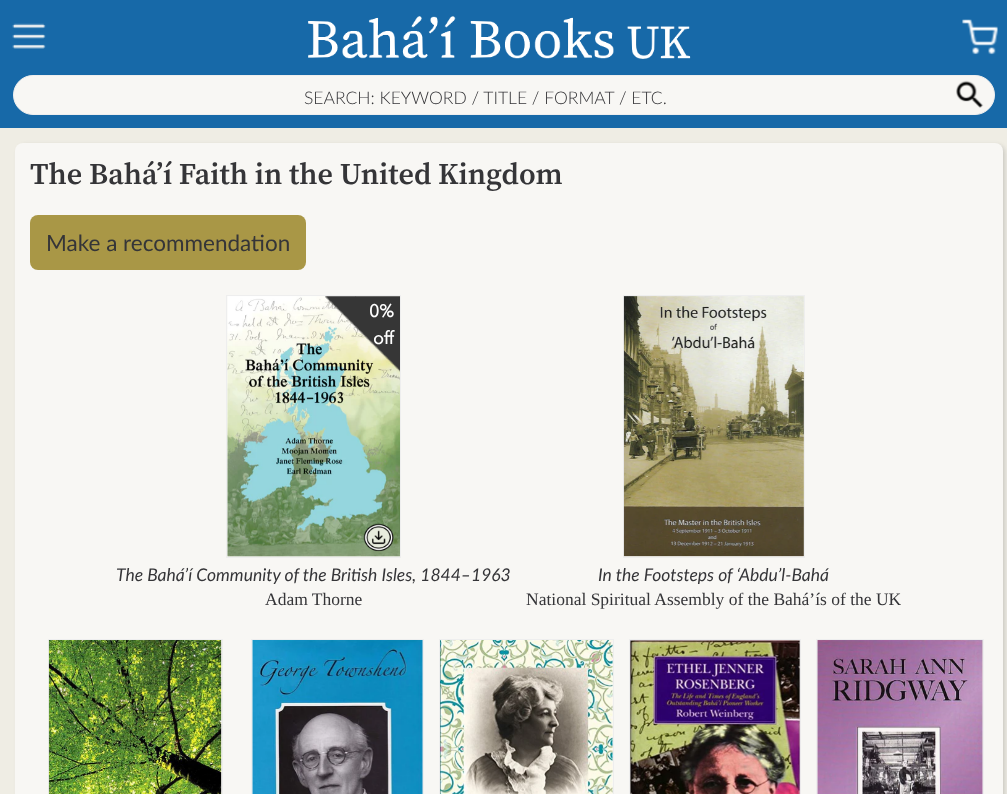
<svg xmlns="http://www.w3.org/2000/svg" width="1007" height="794">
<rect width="100%" height="100%" fill="#efede4"/>
<rect width="1007" height="128" fill="#1769a8"/>
<image x="12" y="23" width="34" height="26" href="media/1.png"/>
<image x="308" y="16" width="383" height="43" href="media/2.png"/>
<image x="962" y="19" width="36" height="36" href="media/3.png"/>
<rect x="13.5" y="75.5" width="981" height="39" rx="19.5" fill="#f8f7f4" stroke="#eee"/>
<text x="304" y="104" style="font-family:Lato;font-size:17.5px;font-weight:300;fill:#353538">SEARCH: KEYWORD / TITLE / FORMAT / ETC.</text>
<image x="956" y="80" width="28" height="28" href="media/4.png"/>
<rect x="18" y="145" width="987" height="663" rx="8" fill="#35353830" filter="blur(2px)"/>
<rect x="15" y="143" width="988" height="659" rx="8" fill="#f8f7f4"/>
<text x="30" y="184" style="font-family:'Source Serif 4';font-size:30px;font-weight:600;fill:#353538">The Bahá’í Faith in the United Kingdom</text>
<rect x="30" y="215" width="276" height="55" rx="8" fill="#a99746"/>
<text x="46" y="251" style="font-family:Lato;font-size:22.5px;fill:#353538">Make a recommendation</text>
<rect x="226.5" y="295.5" width="174" height="262" fill="none" stroke="#eee"/>
<image x="227" y="296" width="173" height="261" href="media/5.png"/>
<image x="325" y="296" width="75" height="76" href="media/6.png"/>
<text x="369" y="317" style="font-family:Avenir Next;font-size:17.5px;font-weight:bold;fill:#fff">0%</text>
<text x="373" y="344" style="font-family:Avenir Next;font-size:17.5px;font-weight:bold;fill:#fff">off</text>
<image x="363" y="523" width="31" height="29" href="media/7.png"/>
<text x="116" y="581" style="font-family:Lato;font-size:17.5px;font-style:italic;fill:#353538">The Bahá’í Community of the British Isles, 1844–1963</text>
<text x="265" y="605" style="font-family:Liberation Serif;font-size:17.5px;fill:#353538">Adam Thorne</text>
<rect x="623.5" y="295.5" width="181" height="262" fill="none" stroke="#eee"/>
<image x="623" y="296" width="181" height="261" href="media/8.png"/>
<text x="598" y="581" style="font-family:Lato;font-size:17.5px;font-style:italic;fill:#353538">In the Footsteps of ‘Abdu’l-Bahá</text>
<text x="526" y="605" style="font-family:Liberation Serif;font-size:17.5px;fill:#353538">National Spiritual Assembly of the Bahá’ís of the UK</text>
<rect x="48.5" y="639.5" width="174" height="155" fill="none" stroke="#eee"/>
<image x="48" y="640" width="174" height="154" href="media/9.png"/>
<rect x="251.5" y="639.5" width="172" height="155" fill="none" stroke="#eee"/>
<image x="252" y="640" width="171" height="154" href="media/10.png"/>
<rect x="439.5" y="639.5" width="174" height="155" fill="none" stroke="#eee"/>
<image x="440" y="640" width="173" height="154" href="media/11.png"/>
<rect x="629.5" y="639.5" width="171" height="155" fill="none" stroke="#eee"/>
<image x="630" y="640" width="171" height="154" href="media/12.png"/>
<rect x="816.5" y="639.5" width="167" height="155" fill="none" stroke="#eee"/>
<image x="817" y="640" width="166" height="154" href="media/13.png"/>
</svg>
